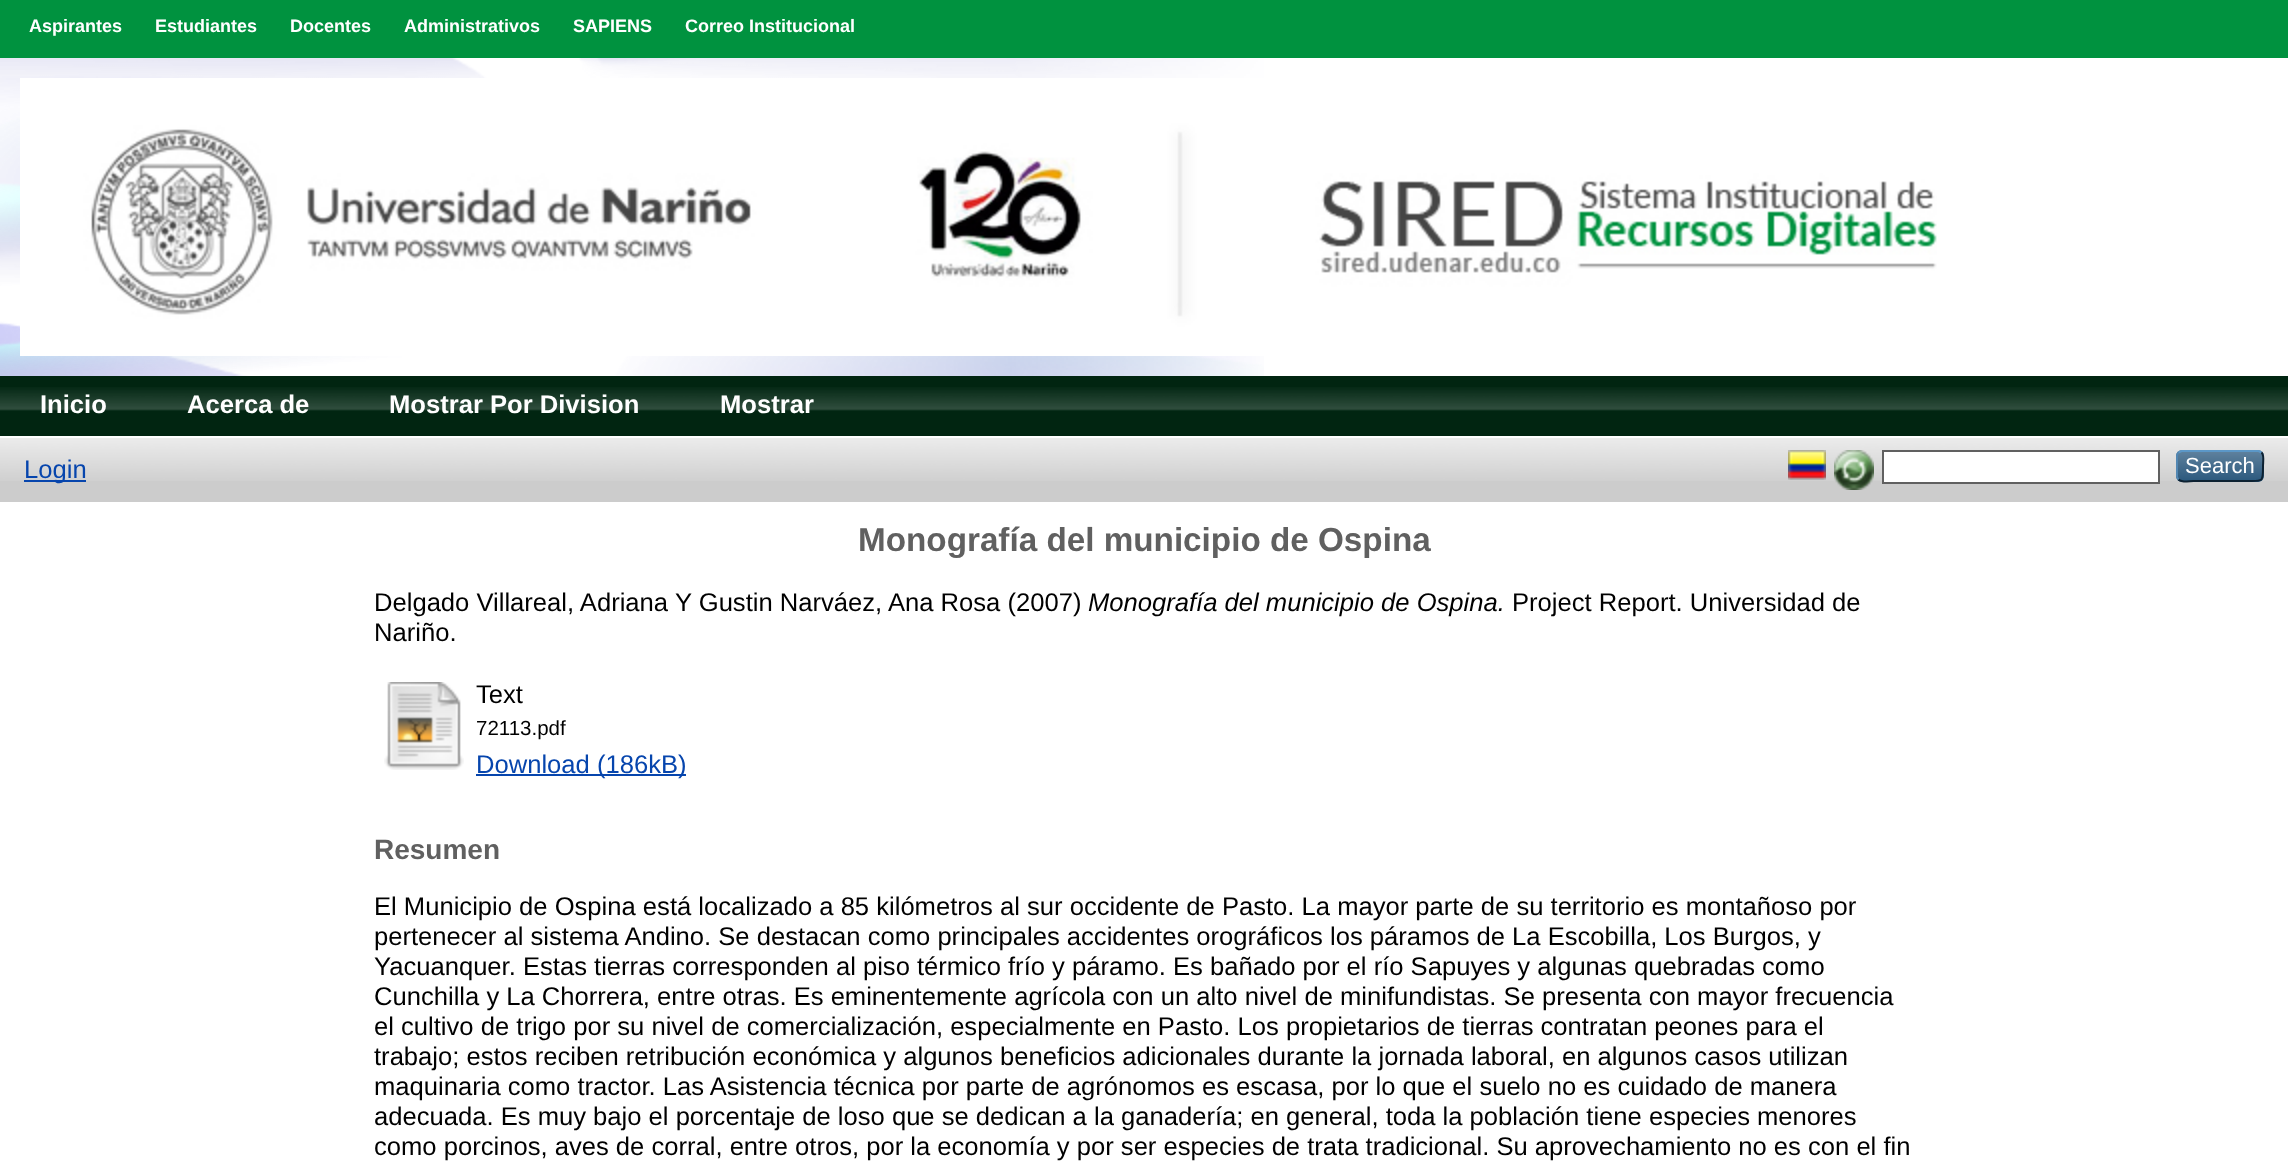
<svg xmlns="http://www.w3.org/2000/svg" width="2288" height="1164">
<rect width="100%" height="100%" fill="#fff"/>
<rect width="2288" height="58" fill="#00923f"/>
<text x="29" y="32" style="font-family:Liberation Sans;font-size:18px;font-weight:bold;fill:#fff">Aspirantes</text>
<text x="155" y="32" style="font-family:Liberation Sans;font-size:18px;font-weight:bold;fill:#fff">Estudiantes</text>
<text x="290" y="32" style="font-family:Liberation Sans;font-size:18px;font-weight:bold;fill:#fff">Docentes</text>
<text x="404" y="32" style="font-family:Liberation Sans;font-size:18px;font-weight:bold;fill:#fff">Administrativos</text>
<text x="573" y="32" style="font-family:Liberation Sans;font-size:18px;font-weight:bold;fill:#fff">SAPIENS</text>
<text x="685" y="32" style="font-family:Liberation Sans;font-size:18px;font-weight:bold;fill:#fff">Correo Institucional</text>
<image x="0" y="58" width="1264" height="318" href="media/1.png"/>
<image x="20" y="78" width="1917" height="278" href="media/2.png"/>
<rect y="376" width="2288" height="60" fill="#012511"/>
<image x="0" y="387" width="2288" height="24" href="media/3.png"/>
<text x="40" y="413" style="font-family:Liberation Sans;font-size:25.6px;font-weight:bold;fill:#fff">Inicio</text>
<text x="187" y="413" style="font-family:Liberation Sans;font-size:25.6px;font-weight:bold;fill:#fff">Acerca de</text>
<text x="389" y="413" style="font-family:Liberation Sans;font-size:25.6px;font-weight:bold;fill:#fff">Mostrar Por Division</text>
<text x="720" y="413" style="font-family:Liberation Sans;font-size:25.6px;font-weight:bold;fill:#fff">Mostrar</text>
<rect y="438" width="2288" height="64" fill="#ccc"/>
<image x="0" y="438" width="2288" height="43" href="media/4.png"/>
<rect x="24" y="480" width="62" height="2" fill="#0645ad"/>
<text x="24" y="478" style="font-family:Liberation Sans;font-size:25.6px;fill:#0645ad">Login</text>
<image x="1788" y="450" width="38" height="30" href="media/5.png"/>
<image x="1834" y="450" width="40" height="40" href="media/6.png"/>
<rect x="1883" y="451" width="276" height="32" fill="#fff" stroke="#606060" stroke-width="2"/>
<rect x="2176" y="450" width="88" height="32" rx="6" fill="#1f4f76"/>
<image x="2176" y="450" width="88" height="32" href="media/7.png"/>
<path d="M2178.5 452.5l3-1.5h77l3 1.5" fill="none" stroke="#5b97c7" stroke-width="2"/>
<path d="M2261.5 452.5c3 2.5 1.5 10 1.5 13.5c0 17 .5 15-17.5 15h-51c-1 0-12.5 2-16-1.5" fill="none" stroke="#0d2131" stroke-width="2"/>
<path d="M2178.5 479.5c-1-1-1.5-2-1.5-3.5v-20c0-1.5 .5-2.5 1.5-3.5" fill="none" stroke="#5287b3" stroke-width="2"/>
<text x="2185" y="473" style="font-family:Liberation Sans;font-size:22px;fill:#fff">Search</text>
<text x="858" y="551" style="font-family:Liberation Sans;font-size:33.25px;font-weight:bold;fill:#606060">Monografía del municipio de Ospina</text>
<text x="374" y="611" style="font-family:Liberation Sans;font-size:25.6px;fill:#000">Delgado Villareal, Adriana</text>
<text x="675" y="611" style="font-family:Liberation Sans;font-size:25.6px;fill:#000">Y Gustin Narváez, Ana Rosa (2007)</text>
<text x="1088" y="611" style="font-family:Liberation Sans;font-size:25.6px;font-style:italic;fill:#000">Monografía del municipio de Ospina.</text>
<text x="1512" y="611" style="font-family:Liberation Sans;font-size:25.6px;fill:#000">Project Report. Universidad de</text>
<text x="374" y="641" style="font-family:Liberation Sans;font-size:25.6px;fill:#000">Nariño.</text>
<image x="384" y="682" width="80" height="88" href="media/8.png"/>
<text x="476" y="703" style="font-family:Liberation Sans;font-size:25.6px;fill:#000">Text</text>
<text x="476" y="735" style="font-family:Liberation Sans;font-size:20.5px;fill:#000">72113.pdf</text>
<rect x="476" y="774" width="210" height="2" fill="#0645ad"/>
<text x="476" y="773" style="font-family:Liberation Sans;font-size:25.6px;fill:#0645ad">Download (186kB)</text>
<text x="374" y="859" style="font-family:Liberation Sans;font-size:28px;font-weight:bold;fill:#606060">Resumen</text>
<text x="374" y="915" style="font-family:Liberation Sans;font-size:25.6px;fill:#000">El Municipio de Ospina está localizado a 85 kilómetros al sur occidente de Pasto. La mayor parte de su territorio es montañoso por</text>
<text x="374" y="945" style="font-family:Liberation Sans;font-size:25.6px;fill:#000">pertenecer al sistema Andino. Se destacan como principales accidentes orográficos los páramos de La Escobilla, Los Burgos, y</text>
<text x="374" y="975" style="font-family:Liberation Sans;font-size:25.6px;fill:#000">Yacuanquer. Estas tierras corresponden al piso térmico frío y páramo. Es bañado por el río Sapuyes y algunas quebradas como</text>
<text x="374" y="1005" style="font-family:Liberation Sans;font-size:25.6px;fill:#000">Cunchilla y La Chorrera, entre otras. Es eminentemente agrícola con un alto nivel de minifundistas. Se presenta con mayor frecuencia</text>
<text x="374" y="1035" style="font-family:Liberation Sans;font-size:25.6px;fill:#000">el cultivo de trigo por su nivel de comercialización, especialmente en Pasto. Los propietarios de tierras contratan peones para el</text>
<text x="374" y="1065" style="font-family:Liberation Sans;font-size:25.6px;fill:#000">trabajo; estos reciben retribución económica y algunos beneficios adicionales durante la jornada laboral, en algunos casos utilizan</text>
<text x="374" y="1095" style="font-family:Liberation Sans;font-size:25.6px;fill:#000">maquinaria como tractor. Las Asistencia técnica por parte de agrónomos es escasa, por lo que el suelo no es cuidado de manera</text>
<text x="374" y="1125" style="font-family:Liberation Sans;font-size:25.6px;fill:#000">adecuada. Es muy bajo el porcentaje de loso que se dedican a la ganadería; en general, toda la población tiene especies menores</text>
<text x="374" y="1155" style="font-family:Liberation Sans;font-size:25.6px;fill:#000">como porcinos, aves de corral, entre otros, por la economía y por ser especies de trata tradicional. Su aprovechamiento no es con el fin</text>
</svg>
